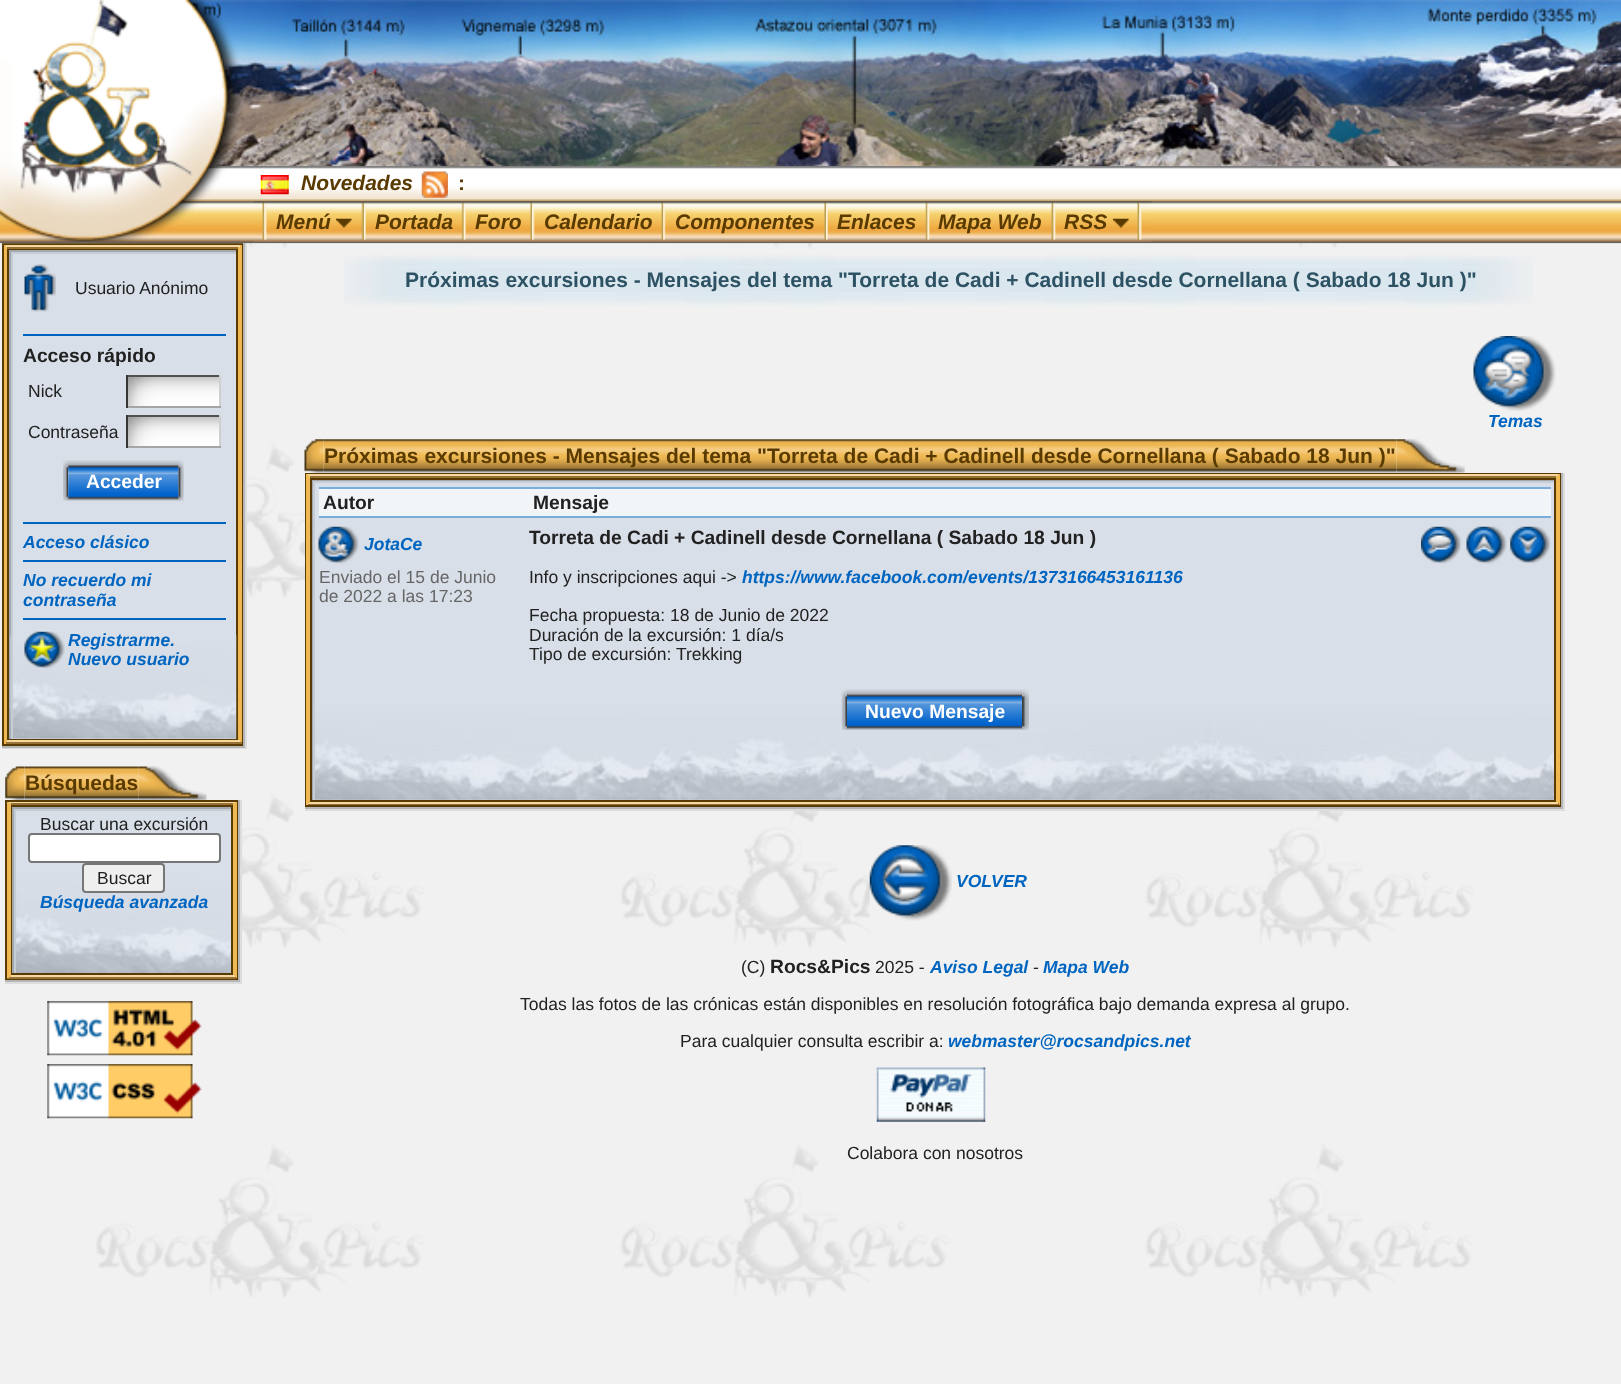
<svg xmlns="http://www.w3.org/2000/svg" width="1621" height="1384">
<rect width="100%" height="100%" fill="#f1f1f1"/>
<image x="96" y="166" width="1377" height="1132" href="media/1.png"/>
<image x="188" y="0" width="1433" height="167" href="media/32.png"/>
<image x="179" y="166" width="1442" height="36" href="media/33.png"/>
<image x="179" y="201" width="1442" height="1" href="media/34.png"/>
<image x="179" y="166" width="1442" height="36" href="media/3.png"/>
<rect x="245" y="243" width="2" height="506" fill="#ddd"/>
<rect x="243" y="243" width="2" height="504" fill="#b5b5b5"/>
<rect x="3" y="244" width="239" height="501" fill="none" stroke="#593a01" stroke-width="2"/>
<image x="0" y="201" width="1621" height="43" href="media/6.png"/>
<image x="0" y="0" width="243" height="242" href="media/2.png"/>
<image x="260" y="175" width="29" height="20" href="media/4.png"/>
<text x="301" y="190" style="font-family:Liberation Sans;font-size:21px;font-weight:bold;font-style:italic;fill:#593a01">Novedades</text>
<image x="421" y="171" width="27" height="27" href="media/5.png"/>
<text x="458" y="190" style="font-family:Liberation Sans;font-size:21px;font-weight:bold;fill:#593a01">:</text>
<image x="253" y="201" width="12" height="41" href="media/7.png"/>
<image x="264" y="201" width="13" height="41" href="media/8.png"/>
<image x="276" y="201" width="76" height="41" href="media/9.png"/>
<image x="336" y="218" width="16" height="10" href="media/30.png"/>
<image x="351" y="201" width="13" height="41" href="media/10.png"/>
<image x="364" y="201" width="11" height="41" href="media/11.png"/>
<image x="374" y="201" width="80" height="41" href="media/12.png"/>
<image x="453" y="201" width="11" height="41" href="media/13.png"/>
<image x="463" y="201" width="12" height="41" href="media/14.png"/>
<image x="474" y="201" width="48" height="41" href="media/15.png"/>
<image x="521" y="201" width="11" height="41" href="media/16.png"/>
<image x="532" y="201" width="13" height="41" href="media/17.png"/>
<image x="544" y="201" width="109" height="41" href="media/18.png"/>
<image x="653" y="201" width="11" height="41" href="media/19.png"/>
<image x="663" y="201" width="11" height="41" href="media/20.png"/>
<image x="674" y="201" width="142" height="41" href="media/21.png"/>
<image x="815" y="201" width="11" height="41" href="media/16.png"/>
<image x="826" y="201" width="11" height="41" href="media/22.png"/>
<image x="836" y="201" width="81" height="41" href="media/23.png"/>
<image x="917" y="201" width="11" height="41" href="media/24.png"/>
<image x="927" y="201" width="11" height="41" href="media/25.png"/>
<image x="938" y="201" width="104" height="41" href="media/26.png"/>
<text x="938" y="229" style="font-family:Liberation Sans;font-size:21px;font-weight:bold;font-style:italic;fill:#593a01">Mapa Web</text>
<image x="1041" y="201" width="13" height="41" href="media/27.png"/>
<image x="1053" y="201" width="11" height="41" href="media/25.png"/>
<image x="1064" y="201" width="65" height="41" href="media/28.png"/>
<image x="1113" y="218" width="16" height="10" href="media/31.png"/>
<image x="1128" y="201" width="12" height="41" href="media/29.png"/>
<image x="1139" y="201" width="13" height="41" href="media/8.png"/>
<text x="276" y="229" style="font-family:Liberation Sans;font-size:21px;font-weight:bold;font-style:italic;fill:#593a01">Menú</text>
<text x="375" y="229" style="font-family:Liberation Sans;font-size:21px;font-weight:bold;font-style:italic;fill:#593a01">Portada</text>
<text x="475" y="229" style="font-family:Liberation Sans;font-size:21px;font-weight:bold;font-style:italic;fill:#593a01">Foro</text>
<text x="544" y="229" style="font-family:Liberation Sans;font-size:21px;font-weight:bold;font-style:italic;fill:#593a01">Calendario</text>
<text x="675" y="229" style="font-family:Liberation Sans;font-size:21px;font-weight:bold;font-style:italic;fill:#593a01">Componentes</text>
<text x="837" y="229" style="font-family:Liberation Sans;font-size:21px;font-weight:bold;font-style:italic;fill:#593a01">Enlaces</text>
<text x="1064" y="229" style="font-family:Liberation Sans;font-size:21px;font-weight:bold;font-style:italic;fill:#593a01">RSS</text>
<rect x="2" y="747" width="245" height="2" fill="#ddd"/>
<rect x="2" y="746" width="243" height="2" fill="#b5b5b5"/>
<rect x="4" y="245" width="238" height="2" fill="#f7d89f"/>
<rect x="240" y="245" width="2" height="499" fill="#efb852"/>
<rect x="4" y="742" width="238" height="2" fill="#967334"/>
<rect x="4" y="245" width="2" height="499" fill="#efb852"/>
<rect x="5" y="247" width="235" height="2" fill="#967334"/>
<rect x="238" y="247" width="2" height="495" fill="#efb852"/>
<rect x="5" y="740" width="235" height="2" fill="#f7d89f"/>
<rect x="5" y="247" width="2" height="495" fill="#efb852"/>
<rect x="8" y="250" width="229" height="489" fill="none" stroke="#593a01" stroke-width="2"/>
<rect x="9" y="250" width="227" height="2" fill="#a3a7ae"/>
<rect x="9" y="250" width="2" height="489" fill="#a3a7ae"/>
<rect x="13" y="254" width="223" height="485" fill="#d9dfe8"/>
<image x="10" y="635" width="227" height="104" href="media/35.png"/>
<rect x="11" y="252" width="225" height="2" fill="#c7cdd5"/>
<rect x="11" y="252" width="2" height="487" fill="#c7cdd5"/>
<image x="24" y="264" width="32" height="48" href="media/36.png"/>
<text x="75" y="294" style="font-family:Liberation Sans;font-size:17.5px;fill:#212121">Usuario Anónimo</text>
<rect x="23" y="334" width="203" height="2" fill="#0065c0"/>
<text x="23" y="362" style="font-family:Liberation Sans;font-size:19.25px;font-weight:bold;fill:#212121">Acceso rápido</text>
<text x="28" y="397" style="font-family:Liberation Sans;font-size:17.5px;fill:#212121">Nick</text>
<image x="128" y="377" width="91" height="29" href="media/37.png"/>
<rect x="126" y="375" width="95" height="2" fill="#515151"/>
<rect x="219" y="375" width="2" height="33" fill="#cfcfcf"/>
<rect x="126" y="406" width="95" height="2" fill="#a5a5a5"/>
<rect x="126" y="375" width="2" height="33" fill="#363636"/>
<text x="28" y="438" style="font-family:Liberation Sans;font-size:17.5px;fill:#212121">Contraseña</text>
<image x="128" y="417" width="91" height="29" href="media/38.png"/>
<rect x="126" y="415" width="95" height="2" fill="#515151"/>
<rect x="219" y="415" width="2" height="33" fill="#cfcfcf"/>
<rect x="126" y="446" width="95" height="2" fill="#a5a5a5"/>
<rect x="126" y="415" width="2" height="33" fill="#363636"/>
<image x="63" y="460" width="6" height="41" href="media/39.png"/>
<image x="68" y="460" width="111" height="41" href="media/40.png"/>
<image x="178" y="460" width="6" height="41" href="media/41.png"/>
<text x="86" y="488" style="font-family:Liberation Sans;font-size:19.25px;font-weight:bold;fill:#fff">Acceder</text>
<rect x="23" y="522" width="203" height="2" fill="#0065c0"/>
<text x="23" y="548" style="font-family:Liberation Sans;font-size:17.5px;font-weight:bold;font-style:italic;fill:#0065c0">Acceso clásico</text>
<rect x="23" y="560" width="203" height="2" fill="#0065c0"/>
<text x="23" y="586" style="font-family:Liberation Sans;font-size:17.5px;font-weight:bold;font-style:italic;fill:#0065c0">No recuerdo mi</text>
<text x="23" y="606" style="font-family:Liberation Sans;font-size:17.5px;font-weight:bold;font-style:italic;fill:#0065c0">contraseña</text>
<rect x="23" y="618" width="203" height="2" fill="#0065c0"/>
<image x="24" y="631" width="41" height="38" href="media/42.png"/>
<text x="68" y="646" style="font-family:Liberation Sans;font-size:17.5px;font-weight:bold;font-style:italic;fill:#0065c0">Registrarme.</text>
<text x="68" y="665" style="font-family:Liberation Sans;font-size:17.5px;font-weight:bold;font-style:italic;fill:#0065c0">Nuevo usuario</text>
<image x="5" y="766" width="20" height="34" href="media/43.png"/>
<image x="24" y="766" width="115" height="34" href="media/44.png"/>
<text x="25" y="790" style="font-family:Liberation Sans;font-size:21px;font-weight:bold;fill:#593a01">Búsquedas</text>
<image x="138" y="766" width="69" height="34" href="media/45.png"/>
<rect x="240" y="800" width="2" height="184" fill="#ddd"/>
<rect x="5" y="982" width="237" height="2" fill="#ddd"/>
<rect x="238" y="800" width="2" height="182" fill="#b5b5b5"/>
<rect x="5" y="980" width="235" height="2" fill="#b5b5b5"/>
<rect x="6" y="801" width="231" height="178" fill="none" stroke="#593a01" stroke-width="2"/>
<rect x="7" y="802" width="229" height="1" fill="#f7d89f"/>
<rect x="235" y="802" width="2" height="176" fill="#efb852"/>
<rect x="7" y="977" width="229" height="2" fill="#967334"/>
<rect x="7" y="802" width="2" height="176" fill="#efb852"/>
<rect x="9" y="803" width="226" height="2" fill="#967334"/>
<rect x="233" y="803" width="2" height="174" fill="#efb852"/>
<rect x="9" y="975" width="226" height="2" fill="#f7d89f"/>
<rect x="9" y="803" width="2" height="174" fill="#efb852"/>
<rect x="12" y="806" width="220" height="168" fill="none" stroke="#593a01" stroke-width="2"/>
<rect x="12" y="807" width="219" height="2" fill="#a3a7ae"/>
<rect x="12" y="807" width="2" height="166" fill="#a3a7ae"/>
<rect x="16" y="811" width="215" height="59" fill="#d9dfe8"/>
<image x="16" y="869" width="215" height="104" href="media/46.png"/>
<rect x="14" y="809" width="217" height="2" fill="#c7cdd5"/>
<rect x="14" y="809" width="2" height="164" fill="#c7cdd5"/>
<text x="40" y="830" style="font-family:Liberation Sans;font-size:17.5px;fill:#212121">Buscar una excursión</text>
<rect x="29" y="834" width="191" height="28" rx="3" fill="#fff" stroke="#767676" stroke-width="2"/>
<rect x="83" y="864" width="81" height="28" rx="3" fill="#efefef" stroke="#767676" stroke-width="2"/>
<text x="97" y="884" style="font-family:Liberation Sans;font-size:17.5px;fill:#212121">Buscar</text>
<text x="40" y="908" style="font-family:Liberation Sans;font-size:17.5px;font-weight:bold;font-style:italic;fill:#0065c0">Búsqueda avanzada</text>
<image x="47" y="1001" width="155" height="55" href="media/47.png"/>
<image x="47" y="1064" width="155" height="55" href="media/48.png"/>
<image x="344" y="255" width="61" height="13" href="media/49.png"/>
<image x="404" y="255" width="1073" height="13" href="media/50.png"/>
<image x="1477" y="256" width="56" height="12" href="media/51.png"/>
<image x="344" y="268" width="61" height="25" href="media/52.png"/>
<rect x="404" y="268" width="1073" height="24" fill="#dbe7ee"/>
<text x="405" y="287" style="font-family:Liberation Sans;font-size:21px;font-weight:bold;fill:#2d5264">Próximas excursiones - Mensajes del tema "Torreta de Cadi + Cadinell desde Cornellana ( Sabado 18 Jun )"</text>
<image x="1477" y="268" width="56" height="25" href="media/53.png"/>
<image x="344" y="292" width="61" height="14" href="media/54.png"/>
<image x="404" y="292" width="1073" height="14" href="media/55.png"/>
<image x="1477" y="292" width="56" height="13" href="media/56.png"/>
<image x="1473" y="336" width="83" height="75" href="media/57.png"/>
<text x="1488" y="427" style="font-family:Liberation Sans;font-size:17.5px;font-weight:bold;font-style:italic;fill:#0065c0">Temas</text>
<image x="304" y="439" width="20" height="34" href="media/58.png"/>
<image x="323" y="439" width="1074" height="34" href="media/59.png"/>
<text x="324" y="463" style="font-family:Liberation Sans;font-size:21px;font-weight:bold;fill:#593a01">Próximas excursiones - Mensajes del tema "Torreta de Cadi + Cadinell desde Cornellana ( Sabado 18 Jun )"</text>
<image x="1396" y="439" width="69" height="34" href="media/60.png"/>
<rect x="1563" y="473" width="2" height="337" fill="#ddd"/>
<rect x="305" y="809" width="1260" height="2" fill="#ddd"/>
<rect x="1561" y="473" width="2" height="336" fill="#b5b5b5"/>
<rect x="305" y="807" width="1258" height="2" fill="#b5b5b5"/>
<rect x="306" y="474" width="1254" height="332" fill="none" stroke="#593a01" stroke-width="2"/>
<rect x="306" y="474" width="1253" height="2" fill="#f7d89f"/>
<rect x="1558" y="474" width="2" height="331" fill="#efb852"/>
<rect x="306" y="803" width="1253" height="2" fill="#967334"/>
<rect x="306" y="474" width="2" height="331" fill="#efb852"/>
<rect x="308" y="476" width="1250" height="2" fill="#967334"/>
<rect x="1556" y="476" width="2" height="327" fill="#efb852"/>
<rect x="308" y="802" width="1250" height="2" fill="#f7d89f"/>
<rect x="308" y="476" width="2" height="327" fill="#efb852"/>
<rect x="311" y="479" width="1244" height="322" fill="none" stroke="#593a01" stroke-width="2"/>
<rect x="312" y="480" width="1242" height="1" fill="#a3a7ae"/>
<rect x="312" y="480" width="2" height="320" fill="#a3a7ae"/>
<rect x="315" y="483" width="1239" height="317" fill="#d9dfe8"/>
<image x="315" y="696" width="1239" height="104" href="media/61.png"/>
<rect x="313" y="481" width="1241" height="2" fill="#c7cdd5"/>
<rect x="313" y="481" width="2" height="319" fill="#c7cdd5"/>
<rect x="319" y="489" width="1232" height="27" fill="#f2f5f8"/>
<rect x="319" y="487" width="1232" height="2" fill="#79addc"/>
<rect x="319" y="516" width="1232" height="2" fill="#79addc"/>
<text x="323" y="509" style="font-family:Liberation Sans;font-size:19.25px;font-weight:bold;fill:#212121">Autor</text>
<text x="533" y="509" style="font-family:Liberation Sans;font-size:19.25px;font-weight:bold;fill:#212121">Mensaje</text>
<image x="318" y="526" width="41" height="38" href="media/62.png"/>
<text x="364" y="550" style="font-family:Liberation Sans;font-size:17.5px;font-weight:bold;font-style:italic;fill:#0065c0">JotaCe</text>
<text x="529" y="544" style="font-family:Liberation Sans;font-size:19.25px;font-weight:bold;fill:#212121">Torreta de Cadi + Cadinell desde Cornellana ( Sabado 18 Jun )</text>
<image x="1421" y="526" width="41" height="38" href="media/63.png"/>
<image x="1466" y="526" width="41" height="38" href="media/64.png"/>
<image x="1510" y="526" width="41" height="38" href="media/65.png"/>
<text x="319" y="583" style="font-family:Liberation Sans;font-size:17.5px;fill:#666">Enviado el 15 de Junio</text>
<text x="319" y="602" style="font-family:Liberation Sans;font-size:17.5px;fill:#666">de 2022 a las 17:23</text>
<text x="529" y="583" style="font-family:Liberation Sans;font-size:17.5px;fill:#212121">Info y inscripciones aqui -&gt;</text>
<text x="742" y="583" style="font-family:Liberation Sans;font-size:17.5px;font-weight:bold;font-style:italic;fill:#0065c0">https://www.facebook.com/events/1373166453161136</text>
<text x="529" y="621" style="font-family:Liberation Sans;font-size:17.5px;fill:#212121">Fecha propuesta: 18 de Junio de 2022</text>
<text x="529" y="641" style="font-family:Liberation Sans;font-size:17.5px;fill:#212121">Duración de la excursión: 1 día/s</text>
<text x="529" y="660" style="font-family:Liberation Sans;font-size:17.5px;fill:#212121">Tipo de excursión: Trekking</text>
<image x="841" y="689" width="6" height="41" href="media/66.png"/>
<image x="847" y="689" width="175" height="41" href="media/67.png"/>
<image x="1022" y="689" width="7" height="41" href="media/68.png"/>
<text x="865" y="718" style="font-family:Liberation Sans;font-size:19.25px;font-weight:bold;fill:#fff">Nuevo Mensaje</text>
<image x="869" y="845" width="83" height="76" href="media/69.png"/>
<text x="956" y="887" style="font-family:Liberation Sans;font-size:17.5px;font-weight:bold;font-style:italic;fill:#0065c0">VOLVER</text>
<text x="741" y="973" style="font-family:Liberation Sans;font-size:17.5px;fill:#212121">(C)</text>
<text x="770" y="973" style="font-family:Liberation Sans;font-size:19.25px;font-weight:bold;fill:#212121">Rocs&amp;Pics</text>
<text x="875" y="973" style="font-family:Liberation Sans;font-size:17.5px;fill:#212121">2025 -</text>
<text x="930" y="973" style="font-family:Liberation Sans;font-size:17.5px;font-weight:bold;font-style:italic;fill:#0065c0">Aviso Legal</text>
<text x="1033" y="973" style="font-family:Liberation Sans;font-size:17.5px;fill:#212121">-</text>
<text x="1043" y="973" style="font-family:Liberation Sans;font-size:17.5px;font-weight:bold;font-style:italic;fill:#0065c0">Mapa Web</text>
<text x="520" y="1010" style="font-family:Liberation Sans;font-size:17.5px;fill:#212121">Todas las fotos de las crónicas están disponibles en resolución fotográfica bajo demanda expresa al grupo.</text>
<text x="680" y="1047" style="font-family:Liberation Sans;font-size:17.5px;fill:#212121">Para cualquier consulta escribir a:</text>
<text x="948" y="1047" style="font-family:Liberation Sans;font-size:17.5px;font-weight:bold;font-style:italic;fill:#0065c0">webmaster@rocsandpics.net</text>
<image x="876" y="1067" width="110" height="55" href="media/70.png"/>
<text x="847" y="1159" style="font-family:Liberation Sans;font-size:17.5px;fill:#212121">Colabora con nosotros</text>
</svg>
